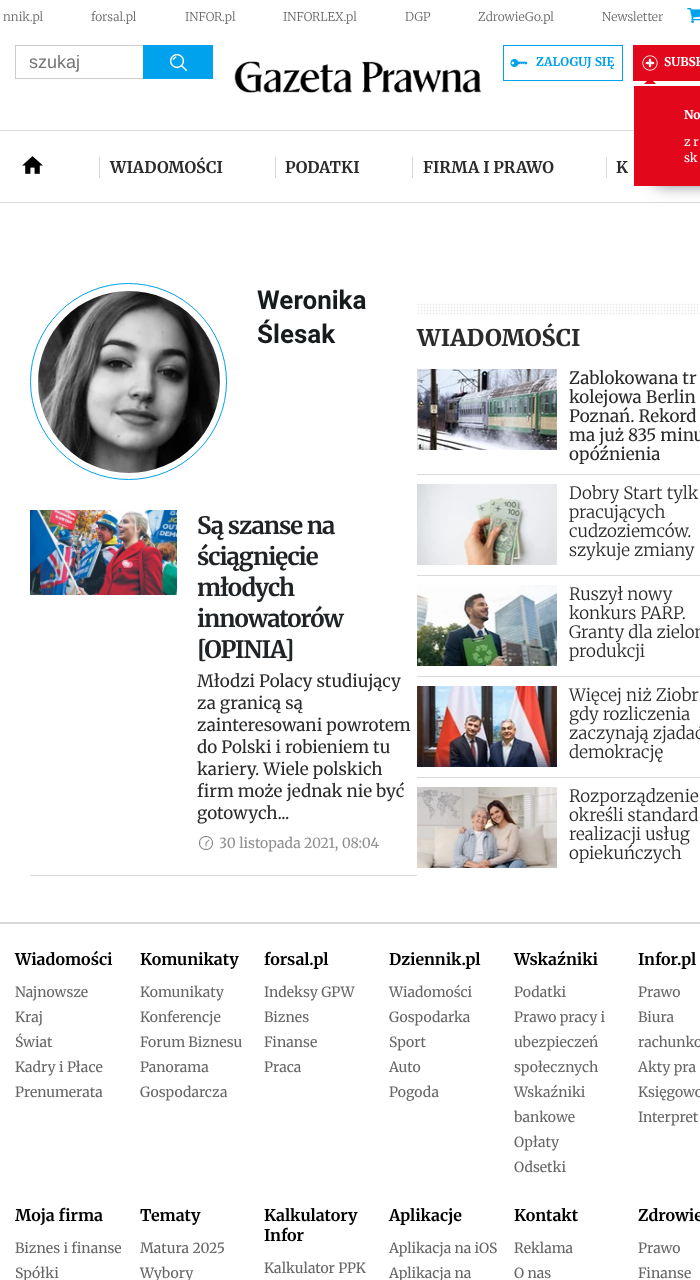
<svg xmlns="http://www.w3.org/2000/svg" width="700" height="1280">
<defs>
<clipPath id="clip1"><rect x="417" y="369" width="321" height="95"/></clipPath>
</defs>
<rect width="100%" height="100%" fill="#fff"/>
<text x="3" y="21" style="font-family:Merriweather;font-size:12px;font-weight:300;fill:#666">nnik.pl</text>
<text x="91" y="21" style="font-family:Merriweather;font-size:12px;font-weight:300;fill:#666">forsal.pl</text>
<text x="185" y="21" style="font-family:Merriweather;font-size:12px;font-weight:300;fill:#666">INFOR.pl</text>
<text x="283" y="21" style="font-family:Merriweather;font-size:12px;font-weight:300;fill:#666">INFORLEX.pl</text>
<text x="405" y="21" style="font-family:Merriweather;font-size:12px;font-weight:300;fill:#666">DGP</text>
<text x="478" y="21" style="font-family:Merriweather;font-size:12px;font-weight:300;fill:#666">ZdrowieGo.pl</text>
<text x="602" y="21" style="font-family:Merriweather;font-size:12px;font-weight:300;fill:#666">Newsletter</text>
<image x="687" y="8" width="13" height="15" href="media/1.png"/>
<rect x="15" y="45" width="128" height="1" fill="#ccc"/>
<rect x="15" y="78" width="128" height="1" fill="#ccc"/>
<rect x="15" y="45" width="1" height="34" fill="#ccc"/>
<text x="29" y="68" style="font-family:Liberation Sans;font-size:18px;fill:#757575">szukaj</text>
<rect x="143" y="45" width="70" height="34" fill="#00a1ed"/>
<image x="170" y="54" width="17" height="17" href="media/2.png"/>
<image x="234" y="61" width="248" height="32" href="media/3.png"/>
<rect x="503.5" y="45.5" width="119" height="35" fill="none" stroke="#00a1ed"/>
<image x="510" y="59" width="18" height="8" href="media/4.png"/>
<text x="536" y="66" style="font-family:Merriweather;font-size:12px;font-weight:bold;fill:#00a1ed">ZALOGUJ SIĘ</text>
<rect x="633" y="45" width="67" height="36" fill="#e2071b"/>
<image x="642" y="55" width="16" height="16" href="media/5.png"/>
<text x="664" y="66" style="font-family:Merriweather;font-size:12px;font-weight:bold;fill:#fff">SUBSK</text>
<path d="M656 84h-12l6-6z" fill="#e2071b"/>
<rect y="130" width="634" height="1" fill="#d9d9da"/>
<rect y="202" width="700" height="1" fill="#d9d9da"/>
<rect x="656" y="112" width="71" height="70" fill="#42445a" filter="blur(9px)"/>
<rect x="634" y="86" width="66" height="100" fill="#e2071b"/>
<text x="684" y="119" style="font-family:Merriweather;font-size:12px;font-weight:bold;fill:#fff">No</text>
<text x="684" y="146" style="font-family:Merriweather;font-size:12px;fill:#fff">z r</text>
<text x="684" y="162" style="font-family:Merriweather;font-size:12px;fill:#fff">sk</text>
<image x="22" y="156" width="21" height="18" href="media/6.png"/>
<rect x="99" y="157" width="1" height="21" fill="#d9d9da"/>
<text x="110" y="173" style="font-family:Merriweather;font-size:16px;font-weight:bold;fill:#2b2b2b">WIADOMOŚCI</text>
<rect x="275" y="157" width="1" height="21" fill="#d9d9da"/>
<text x="285" y="173" style="font-family:Merriweather;font-size:16px;font-weight:bold;fill:#2b2b2b">PODATKI</text>
<rect x="412" y="157" width="1" height="21" fill="#d9d9da"/>
<text x="423" y="173" style="font-family:Merriweather;font-size:16px;font-weight:bold;fill:#2b2b2b">FIRMA I PRAWO</text>
<rect x="606" y="157" width="1" height="21" fill="#d9d9da"/>
<text x="616" y="173" style="font-family:Merriweather;font-size:16px;font-weight:bold;fill:#2b2b2b">K</text>
<circle cx="128.5" cy="381.5" r="98" fill="none" stroke="#00a1ed"/>
<image x="38" y="291" width="182" height="182" href="media/7.png"/>
<text x="257" y="309" style="font-family:Roboto;font-size:26px;font-weight:bold;fill:#161b1d">Weronika</text>
<text x="257" y="343" style="font-family:Roboto;font-size:26px;font-weight:bold;fill:#161b1d">Ślesak</text>
<image x="30" y="510" width="147" height="85" href="media/8.png"/>
<text x="197" y="534" style="font-family:'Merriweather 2';font-size:24px;font-weight:bold;letter-spacing:-1px;fill:#202427">Są szanse na</text>
<text x="197" y="565" style="font-family:'Merriweather 2';font-size:24px;font-weight:bold;letter-spacing:-1px;fill:#202427">ściągnięcie</text>
<text x="197" y="596" style="font-family:'Merriweather 2';font-size:24px;font-weight:bold;letter-spacing:-1px;fill:#202427">młodych</text>
<text x="197" y="627" style="font-family:'Merriweather 2';font-size:24px;font-weight:bold;letter-spacing:-1px;fill:#202427">innowatorów</text>
<text x="197" y="658" style="font-family:'Merriweather 2';font-size:24px;font-weight:bold;letter-spacing:-1px;fill:#202427">[OPINIA]</text>
<text x="197" y="687" style="font-family:Merriweather;font-size:17px;fill:#2b2b2b">Młodzi Polacy studiujący</text>
<text x="197" y="709" style="font-family:Merriweather;font-size:17px;fill:#2b2b2b">za granicą są</text>
<text x="197" y="731" style="font-family:Merriweather;font-size:17px;fill:#2b2b2b">zainteresowani powrotem</text>
<text x="197" y="753" style="font-family:Merriweather;font-size:17px;fill:#2b2b2b">do Polski i robieniem tu</text>
<text x="197" y="775" style="font-family:Merriweather;font-size:17px;fill:#2b2b2b">kariery. Wiele polskich</text>
<text x="197" y="797" style="font-family:Merriweather;font-size:17px;fill:#2b2b2b">firm może jednak nie być</text>
<text x="197" y="819" style="font-family:Merriweather;font-size:17px;fill:#2b2b2b">gotowych...</text>
<image x="198" y="835" width="15" height="16" href="media/9.png"/>
<text x="219" y="848" style="font-family:Merriweather;font-size:14px;fill:#909090">30 listopada 2021, 08:04</text>
<rect x="30" y="875" width="387" height="1" fill="#d9d9da"/>
<image x="417" y="303" width="283" height="12" href="media/10.png"/>
<text x="417" y="346" style="font-family:Merriweather;font-size:23px;font-weight:800;fill:#2b2b2b">WIADOMOŚCI</text>
<image x="417" y="369" width="140" height="81" href="media/11.png"/>
<text x="569" y="384" style="font-family:Merriweather;font-size:17px;fill:#2b2b2b">Zablokowana tr</text>
<text x="569" y="403" style="font-family:Merriweather;font-size:17px;fill:#2b2b2b">kolejowa Berlin</text>
<text x="569" y="422" style="font-family:Merriweather;font-size:17px;fill:#2b2b2b">Poznań. Rekord</text>
<text x="569" y="441" style="font-family:Merriweather;font-size:17px;fill:#2b2b2b">ma już 835 minu</text>
<g clip-path="url(#clip1)">
<text x="569" y="460" style="font-family:Merriweather;font-size:17px;fill:#2b2b2b">opóźnienia</text>
</g>
<rect x="417" y="474" width="283" height="1" fill="#d9d9da"/>
<image x="417" y="484" width="140" height="81" href="media/12.png"/>
<text x="569" y="499" style="font-family:Merriweather;font-size:17px;font-weight:300;fill:#2b2b2b">Dobry Start tylk</text>
<text x="569" y="518" style="font-family:Merriweather;font-size:17px;font-weight:300;fill:#2b2b2b">pracujących</text>
<text x="569" y="537" style="font-family:Merriweather;font-size:17px;font-weight:300;fill:#2b2b2b">cudzoziemców.</text>
<text x="569" y="556" style="font-family:Merriweather;font-size:17px;font-weight:300;fill:#2b2b2b">szykuje zmiany</text>
<rect x="417" y="575" width="283" height="1" fill="#d9d9da"/>
<image x="417" y="585" width="140" height="81" href="media/13.png"/>
<text x="569" y="600" style="font-family:Merriweather;font-size:17px;font-weight:300;fill:#2b2b2b">Ruszył nowy</text>
<text x="569" y="619" style="font-family:Merriweather;font-size:17px;font-weight:300;fill:#2b2b2b">konkurs PARP.</text>
<text x="569" y="638" style="font-family:Merriweather;font-size:17px;font-weight:300;fill:#2b2b2b">Granty dla zielon</text>
<text x="569" y="657" style="font-family:Merriweather;font-size:17px;font-weight:300;fill:#2b2b2b">produkcji</text>
<rect x="417" y="676" width="283" height="1" fill="#d9d9da"/>
<image x="417" y="686" width="140" height="81" href="media/14.png"/>
<text x="569" y="701" style="font-family:Merriweather;font-size:17px;font-weight:300;fill:#2b2b2b">Więcej niż Ziobr</text>
<text x="569" y="720" style="font-family:Merriweather;font-size:17px;font-weight:300;fill:#2b2b2b">gdy rozliczenia</text>
<text x="569" y="739" style="font-family:Merriweather;font-size:17px;font-weight:300;fill:#2b2b2b">zaczynają zjadać</text>
<text x="569" y="758" style="font-family:Merriweather;font-size:17px;font-weight:300;fill:#2b2b2b">demokrację</text>
<rect x="417" y="777" width="283" height="1" fill="#d9d9da"/>
<image x="417" y="787" width="140" height="81" href="media/15.png"/>
<text x="569" y="802" style="font-family:Merriweather;font-size:17px;font-weight:300;fill:#2b2b2b">Rozporządzenie</text>
<text x="569" y="821" style="font-family:Merriweather;font-size:17px;font-weight:300;fill:#2b2b2b">określi standard</text>
<text x="569" y="840" style="font-family:Merriweather;font-size:17px;font-weight:300;fill:#2b2b2b">realizacji usług</text>
<text x="569" y="859" style="font-family:Merriweather;font-size:17px;font-weight:300;fill:#2b2b2b">opiekuńczych</text>
<rect y="922" width="700" height="2" fill="#d9d9da"/>
<text x="15" y="965" style="font-family:Merriweather;font-size:16px;font-weight:bold;fill:#000">Wiadomości</text>
<text x="15" y="997" style="font-family:Merriweather;font-size:14px;fill:#666">Najnowsze</text>
<text x="15" y="1022" style="font-family:Merriweather;font-size:14px;fill:#666">Kraj</text>
<text x="15" y="1047" style="font-family:Merriweather;font-size:14px;fill:#666">Świat</text>
<text x="15" y="1072" style="font-family:Merriweather;font-size:14px;fill:#666">Kadry i Płace</text>
<text x="15" y="1097" style="font-family:Merriweather;font-size:14px;fill:#666">Prenumerata</text>
<text x="140" y="965" style="font-family:Merriweather;font-size:16px;font-weight:bold;fill:#000">Komunikaty</text>
<text x="140" y="997" style="font-family:Merriweather;font-size:14px;fill:#666">Komunikaty</text>
<text x="140" y="1022" style="font-family:Merriweather;font-size:14px;fill:#666">Konferencje</text>
<text x="140" y="1047" style="font-family:Merriweather;font-size:14px;fill:#666">Forum Biznesu</text>
<text x="140" y="1072" style="font-family:Merriweather;font-size:14px;fill:#666">Panorama</text>
<text x="140" y="1097" style="font-family:Merriweather;font-size:14px;fill:#666">Gospodarcza</text>
<text x="264" y="965" style="font-family:Merriweather;font-size:16px;font-weight:bold;fill:#000">forsal.pl</text>
<text x="264" y="997" style="font-family:Merriweather;font-size:14px;fill:#666">Indeksy GPW</text>
<text x="264" y="1022" style="font-family:Merriweather;font-size:14px;fill:#666">Biznes</text>
<text x="264" y="1047" style="font-family:Merriweather;font-size:14px;fill:#666">Finanse</text>
<text x="264" y="1072" style="font-family:Merriweather;font-size:14px;fill:#666">Praca</text>
<text x="389" y="965" style="font-family:Merriweather;font-size:16px;font-weight:bold;fill:#000">Dziennik.pl</text>
<text x="389" y="997" style="font-family:Merriweather;font-size:14px;fill:#666">Wiadomości</text>
<text x="389" y="1022" style="font-family:Merriweather;font-size:14px;fill:#666">Gospodarka</text>
<text x="389" y="1047" style="font-family:Merriweather;font-size:14px;fill:#666">Sport</text>
<text x="389" y="1072" style="font-family:Merriweather;font-size:14px;fill:#666">Auto</text>
<text x="389" y="1097" style="font-family:Merriweather;font-size:14px;fill:#666">Pogoda</text>
<text x="514" y="965" style="font-family:Merriweather;font-size:16px;font-weight:bold;fill:#000">Wskaźniki</text>
<text x="514" y="997" style="font-family:Merriweather;font-size:14px;fill:#666">Podatki</text>
<text x="514" y="1022" style="font-family:Merriweather;font-size:14px;fill:#666">Prawo pracy i</text>
<text x="514" y="1047" style="font-family:Merriweather;font-size:14px;fill:#666">ubezpieczeń</text>
<text x="514" y="1072" style="font-family:Merriweather;font-size:14px;fill:#666">społecznych</text>
<text x="514" y="1097" style="font-family:Merriweather;font-size:14px;fill:#666">Wskaźniki</text>
<text x="514" y="1122" style="font-family:Merriweather;font-size:14px;fill:#666">bankowe</text>
<text x="514" y="1147" style="font-family:Merriweather;font-size:14px;fill:#666">Opłaty</text>
<text x="514" y="1172" style="font-family:Merriweather;font-size:14px;fill:#666">Odsetki</text>
<text x="638" y="965" style="font-family:Merriweather;font-size:16px;font-weight:bold;fill:#000">Infor.pl</text>
<text x="638" y="997" style="font-family:Merriweather;font-size:14px;fill:#666">Prawo</text>
<text x="638" y="1022" style="font-family:Merriweather;font-size:14px;fill:#666">Biura</text>
<text x="638" y="1047" style="font-family:Merriweather;font-size:14px;fill:#666">rachunko</text>
<text x="638" y="1072" style="font-family:Merriweather;font-size:14px;fill:#666">Akty pra</text>
<text x="638" y="1097" style="font-family:Merriweather;font-size:14px;fill:#666">Księgowo</text>
<text x="638" y="1122" style="font-family:Merriweather;font-size:14px;fill:#666">Interpret</text>
<text x="15" y="1221" style="font-family:Merriweather;font-size:16px;font-weight:bold;fill:#000">Moja firma</text>
<text x="15" y="1253" style="font-family:Merriweather;font-size:14px;fill:#666">Biznes i finanse</text>
<text x="15" y="1278" style="font-family:Merriweather;font-size:14px;fill:#666">Spółki</text>
<text x="140" y="1221" style="font-family:Merriweather;font-size:16px;font-weight:bold;fill:#000">Tematy</text>
<text x="140" y="1253" style="font-family:Merriweather;font-size:14px;fill:#666">Matura 2025</text>
<text x="140" y="1278" style="font-family:Merriweather;font-size:14px;fill:#666">Wybory</text>
<text x="264" y="1221" style="font-family:Merriweather;font-size:16px;font-weight:bold;fill:#000">Kalkulatory</text>
<text x="264" y="1241" style="font-family:Merriweather;font-size:16px;font-weight:bold;fill:#000">Infor</text>
<text x="264" y="1273" style="font-family:Merriweather;font-size:14px;fill:#666">Kalkulator PPK</text>
<text x="389" y="1221" style="font-family:Merriweather;font-size:16px;font-weight:bold;fill:#000">Aplikacje</text>
<text x="389" y="1253" style="font-family:Merriweather;font-size:14px;fill:#666">Aplikacja na iOS</text>
<text x="389" y="1278" style="font-family:Merriweather;font-size:14px;fill:#666">Aplikacja na</text>
<text x="514" y="1221" style="font-family:Merriweather;font-size:16px;font-weight:bold;fill:#000">Kontakt</text>
<text x="514" y="1253" style="font-family:Merriweather;font-size:14px;fill:#666">Reklama</text>
<text x="514" y="1278" style="font-family:Merriweather;font-size:14px;fill:#666">O nas</text>
<text x="638" y="1221" style="font-family:Merriweather;font-size:16px;font-weight:bold;fill:#000">Zdrowie</text>
<text x="638" y="1253" style="font-family:Merriweather;font-size:14px;fill:#666">Prawo</text>
<text x="638" y="1278" style="font-family:Merriweather;font-size:14px;fill:#666">Finanse</text>
</svg>
